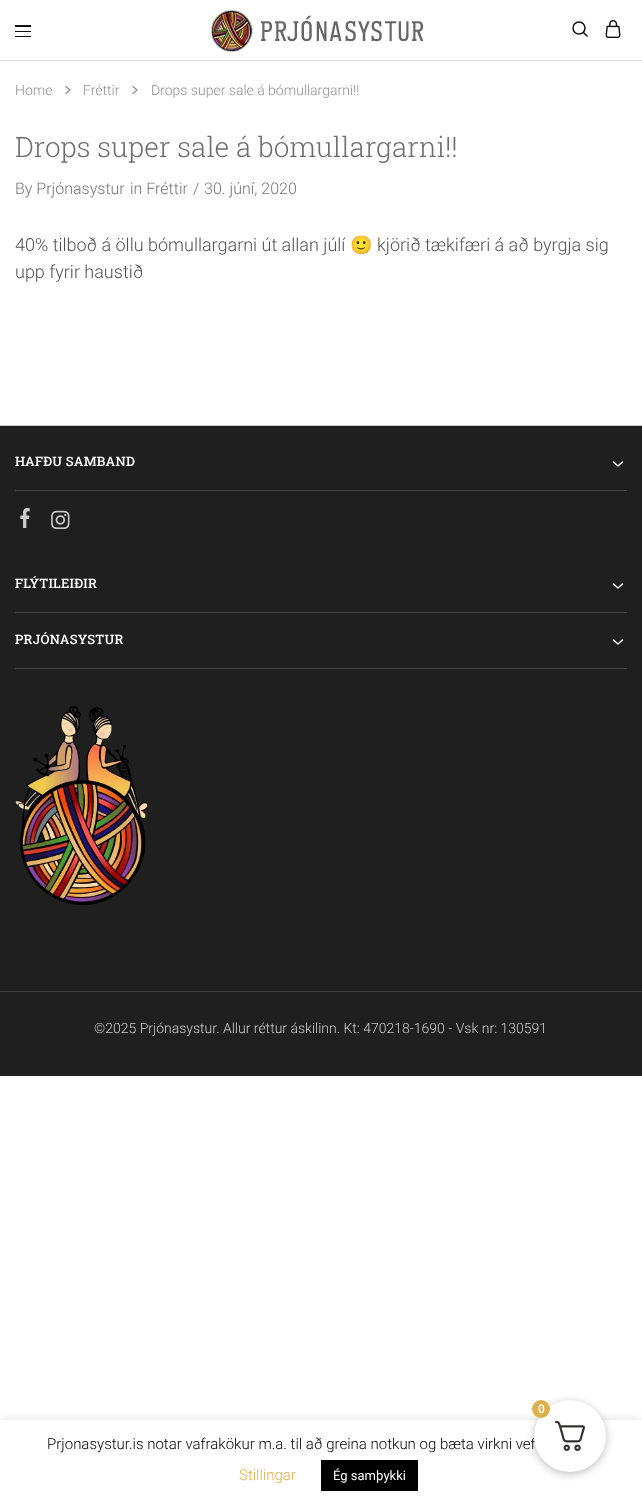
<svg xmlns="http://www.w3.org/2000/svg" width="642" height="1508">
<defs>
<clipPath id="clip1"><rect x="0" y="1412" width="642" height="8"/></clipPath>
</defs>
<rect width="100%" height="100%" fill="#fff"/>
<rect y="60" width="642" height="1" fill="#e2e2e2"/>
<rect x="15" y="25" width="16" height="2" fill="#111"/>
<rect x="15" y="31" width="16" height="1" fill="#111"/>
<rect x="15" y="36" width="16" height="1" fill="#111"/>
<image x="211" y="10" width="213" height="42" href="media/1.png"/>
<circle cx="579" cy="28" r="6" fill="none" stroke="#111" stroke-width="1.5"/>
<path d="M587 36l-3.5-3.5" fill="none" stroke="#111" stroke-width="1.5" stroke-linecap="round" stroke-linejoin="round"/>
<image x="605" y="20" width="16" height="18" href="media/2.png"/>
<text x="15" y="95" style="font-family:Roboto;font-size:14px;font-weight:300;fill:#909090">Home</text>
<path d="M66 93.5l4-3.5l-4-3.5" fill="none" stroke="#909090" stroke-width="1.2" stroke-linecap="round" stroke-linejoin="round"/>
<text x="83" y="95" style="font-family:Roboto;font-size:14px;font-weight:300;fill:#909090">Fréttir</text>
<path d="M133 93.5l4-3.5l-4-3.5" fill="none" stroke="#909090" stroke-width="1.2" stroke-linecap="round" stroke-linejoin="round"/>
<text x="151" y="95" style="font-family:Roboto;font-size:14px;font-weight:300;fill:#909090">Drops super sale á bómullargarni!!</text>
<text x="15" y="157" style="font-family:Roboto Slab;font-size:28px;font-weight:300;fill:#6e6e6e">Drops super sale á bómullargarni!!</text>
<text x="15" y="194" style="font-family:Roboto;font-size:16px;font-weight:300;fill:#767676">By Prjónasystur</text>
<text x="130" y="194" style="font-family:Roboto;font-size:16px;font-weight:300;fill:#767676">in Fréttir</text>
<text x="193" y="194" style="font-family:Roboto;font-size:16px;font-weight:300;fill:#767676">/</text>
<text x="204" y="194" style="font-family:Roboto;font-size:16px;font-weight:300;fill:#767676">30. júní, 2020</text>
<text x="15" y="251" style="font-family:Roboto;font-size:18px;font-weight:300;fill:#525252">40% tilboð á öllu bómullargarni út allan júlí</text>
<text x="350" y="251" style="font-family:Noto Color Emoji;font-size:18px;fill:#525252">🙂</text>
<text x="377" y="251" style="font-family:Roboto;font-size:18px;font-weight:300;fill:#525252">kjörið tækifæri á að byrgja sig</text>
<text x="15" y="278" style="font-family:Roboto;font-size:18px;font-weight:300;fill:#525252">upp fyrir haustið</text>
<rect y="426" width="642" height="650" fill="#1f1f1f"/>
<rect y="425" width="642" height="1" fill="#c8c8c8"/>
<rect x="15" y="490" width="612" height="1" fill="#444"/>
<text x="15" y="466" style="font-family:Roboto Slab;font-size:13px;font-weight:500;letter-spacing:0.25px;fill:#fff">HAFÐU SAMBAND</text>
<path d="M613.5 462l4.5 4l4.5-4" fill="none" stroke="#fff" stroke-width="1.5" stroke-linecap="round" stroke-linejoin="round"/>
<image x="20" y="508" width="10" height="20" href="media/3.png"/>
<image x="51" y="510" width="19" height="19" href="media/4.png"/>
<rect x="15" y="612" width="612" height="1" fill="#444"/>
<text x="15" y="588" style="font-family:Roboto Slab;font-size:13px;font-weight:500;letter-spacing:0.25px;fill:#fff">FLÝTILEIÐIR</text>
<path d="M613.5 584l4.5 4l4.5-4m-9 56l4.5 4l4.5-4" fill="none" stroke="#fff" stroke-width="1.5" stroke-linecap="round" stroke-linejoin="round"/>
<rect x="15" y="668" width="612" height="1" fill="#444"/>
<text x="15" y="644" style="font-family:Roboto Slab;font-size:13px;font-weight:500;letter-spacing:0.25px;fill:#fff">PRJÓNASYSTUR</text>
<image x="15" y="706" width="133" height="199" href="media/5.png"/>
<rect y="991" width="642" height="1" fill="#3b3b3b"/>
<text x="94" y="1033" style="font-family:Roboto;font-size:14px;font-weight:300;fill:#cdcdcd">©2025 Prjónasystur. Allur réttur áskilinn. Kt: 470218-1690 - Vsk nr: 130591</text>
<rect x="534" y="1402" width="72" height="72" rx="36" fill="#00000040" filter="blur(4px)"/>
<g clip-path="url(#clip1)">
<rect y="1419" width="642" height="88" fill="#acabab4d" filter="blur(5px)"/>
</g>
<text x="47" y="1449" style="font-family:Roboto;font-size:15px;font-weight:300;fill:#000">Prjonasystur.is notar vafrakökur m.a. til að greina notkun og bæta virkni vef</text>
<circle cx="570" cy="1436" r="36" fill="#fff"/>
<image x="555" y="1421" width="30" height="30" href="media/6.png"/>
<circle cx="541" cy="1409" r="9" fill="#dcb14a"/>
<text x="538" y="1413" style="font-family:Roboto;font-size:12px;font-weight:600;fill:#fff">0</text>
<text x="239" y="1480" style="font-family:Roboto;font-size:15px;font-weight:300;fill:#dcb14a">Stillingar</text>
<rect x="321" y="1460" width="97" height="31" fill="#000"/>
<text x="333" y="1480" style="font-family:Roboto;font-size:13px;fill:#fff">Ég samþykki</text>
</svg>
